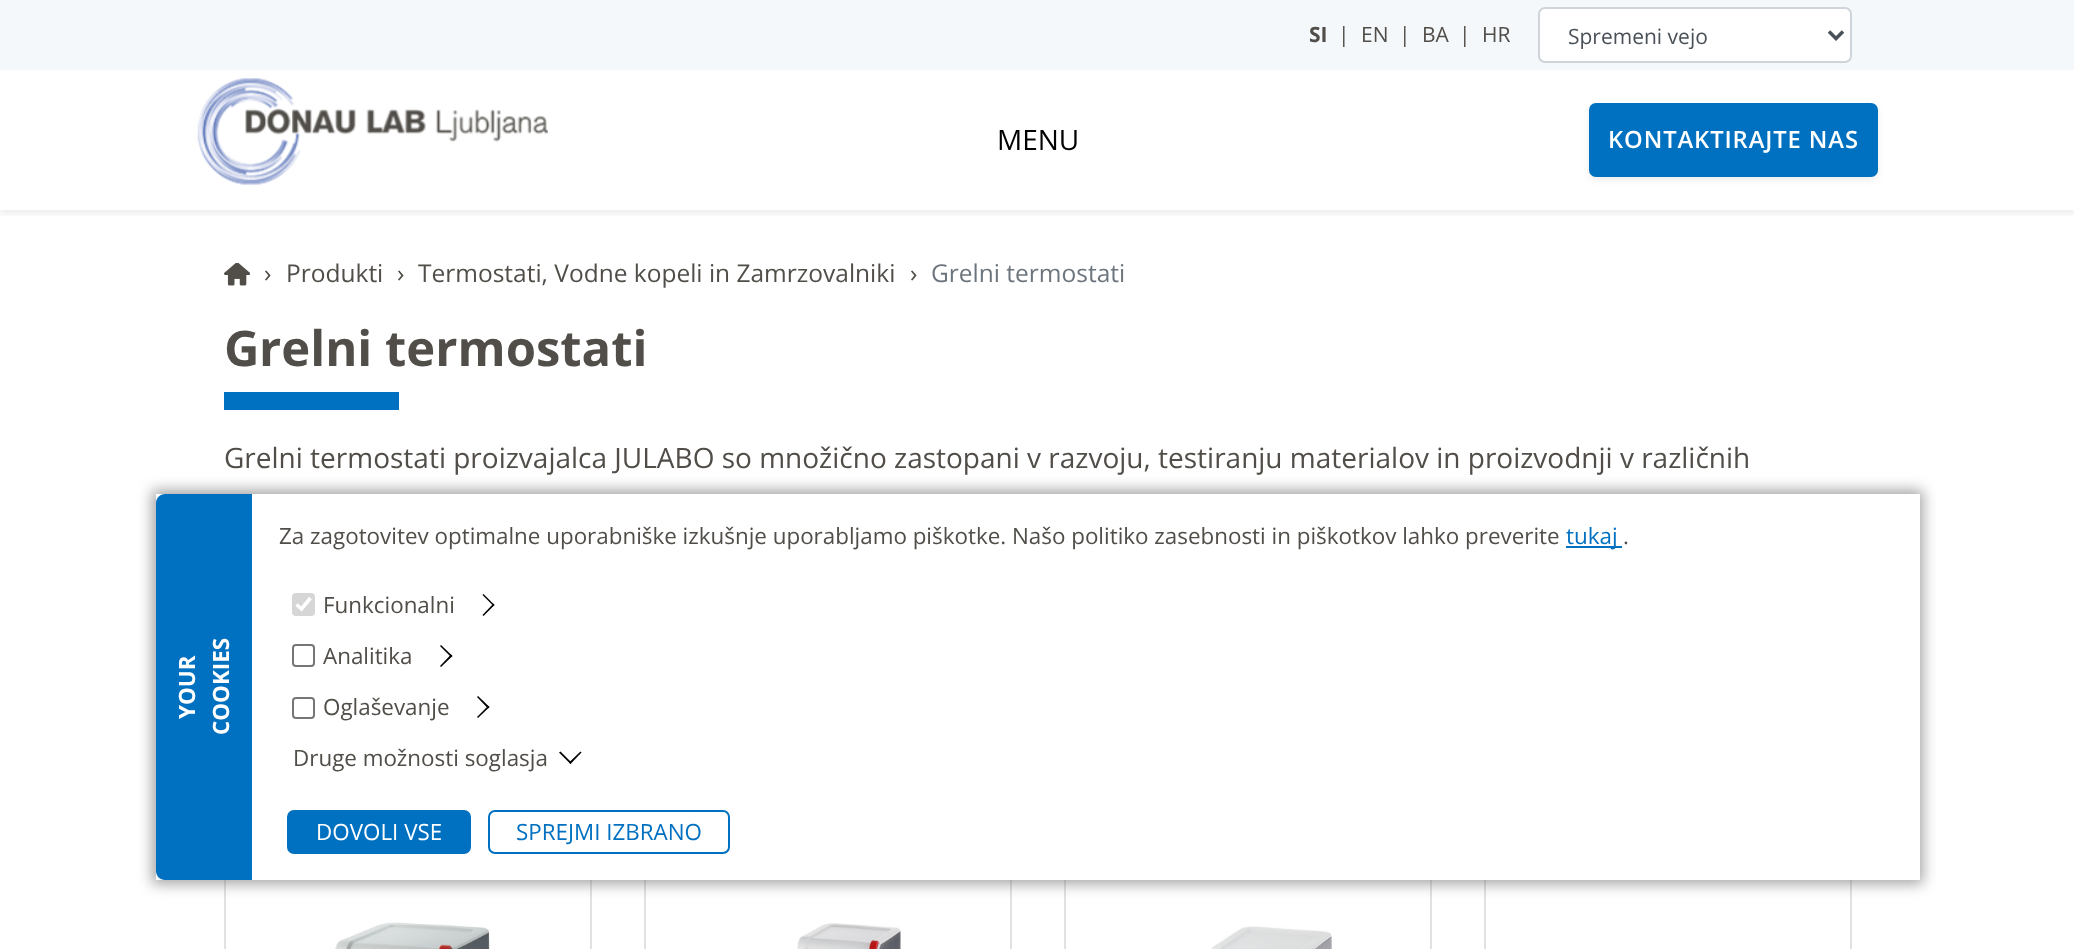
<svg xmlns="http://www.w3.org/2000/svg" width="2074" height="949">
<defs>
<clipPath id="clip1"><rect x="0" y="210" width="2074" height="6"/></clipPath>
<clipPath id="clip2"><path d="M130 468h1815v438h-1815zm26 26h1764v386h-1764z" clip-rule="evenodd"/></clipPath>
</defs>
<rect width="100%" height="100%" fill="#fff"/>
<g clip-path="url(#clip1)">
<rect y="4" width="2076" height="210" fill="#00000012" filter="blur(3.5px)"/>
</g>
<rect width="2074" height="70" fill="#f5f8fb"/>
<text x="1309" y="42" style="font-family:Open Sans;font-size:21px;font-weight:bold;fill:#514e49">SI</text>
<text x="1338" y="42" style="font-family:Open Sans;font-size:21px;fill:#514e49">|</text>
<text x="1361" y="42" style="font-family:Open Sans;font-size:21px;fill:#514e49">EN</text>
<text x="1399" y="42" style="font-family:Open Sans;font-size:21px;fill:#514e49">|</text>
<text x="1422" y="42" style="font-family:Open Sans;font-size:21px;fill:#514e49">BA</text>
<text x="1459" y="42" style="font-family:Open Sans;font-size:21px;fill:#514e49">|</text>
<text x="1482" y="42" style="font-family:Open Sans;font-size:21px;fill:#514e49">HR</text>
<rect x="1539" y="8" width="312" height="54" rx="6" fill="#fff" stroke="#ced4da" stroke-width="2"/>
<path d="M1829 31.5l7 7l7-7" fill="none" stroke="#495057" stroke-width="3.5"/>
<text x="1568" y="44" style="font-family:Open Sans;font-size:21px;fill:#495057">Spremeni vejo</text>
<image x="197" y="78" width="351" height="107" href="media/1.png"/>
<text x="997" y="150" style="font-family:Open Sans;font-size:28px;fill:#000">MENU</text>
<rect x="1589" y="107" width="289" height="73" rx="7" fill="#00000012" filter="blur(3.5px)"/>
<rect x="1590" y="104" width="287" height="72" rx="6" fill="#0070c0" stroke="#0070c0" stroke-width="2"/>
<text x="1608" y="148" style="font-family:Open Sans;font-size:23.75px;font-weight:600;letter-spacing:0.9px;fill:#fff">KONTAKTIRAJTE NAS</text>
<image x="224" y="263" width="26" height="23" href="media/2.png"/>
<text x="264" y="282" style="font-family:Open Sans;font-size:24.5px;fill:#514e49">›</text>
<text x="286" y="282" style="font-family:Open Sans;font-size:24.5px;fill:#514e49">Produkti</text>
<text x="397" y="282" style="font-family:Open Sans;font-size:24.5px;fill:#514e49">›</text>
<text x="418" y="282" style="font-family:Open Sans;font-size:24.5px;fill:#514e49">Termostati, Vodne kopeli in Zamrzovalniki</text>
<text x="910" y="282" style="font-family:Open Sans;font-size:24.5px;fill:#514e49">›</text>
<text x="931" y="282" style="font-family:Open Sans;font-size:24.5px;fill:#6c757d">Grelni termostati</text>
<text x="224" y="366" style="font-family:Noto Sans;font-size:49px;font-weight:bold;fill:#514e49">G</text>
<text x="259" y="366" style="font-family:Open Sans;font-size:49px;font-weight:bold;fill:#514e49">relni termostati</text>
<rect x="224" y="392" width="175" height="18" fill="#0070c0"/>
<text x="224" y="468" style="font-family:Open Sans;font-size:28px;fill:#514e49">Grelni termostati proizvajalca JULABO so množično zastopani v razvoju, testiranju materialov in proizvodnji v različnih</text>
<rect x="225" y="764" width="366" height="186" fill="none" stroke="#e1e1e1" stroke-width="2"/>
<image x="335" y="922" width="155" height="27" href="media/3.png"/>
<rect x="645" y="764" width="366" height="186" fill="none" stroke="#e1e1e1" stroke-width="2"/>
<image x="797" y="923" width="104" height="26" href="media/4.png"/>
<rect x="1065" y="764" width="366" height="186" fill="none" stroke="#e1e1e1" stroke-width="2"/>
<image x="1211" y="926" width="121" height="23" href="media/5.png"/>
<rect x="1485" y="764" width="366" height="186" fill="none" stroke="#e1e1e1" stroke-width="2"/>
<g clip-path="url(#clip2)">
<rect x="152" y="490" width="1771" height="394" fill="#63636394" filter="blur(7px)"/>
</g>
<path d="M165 494h87v386h-87c-5 0-9-4-9-9v-368c0-5 4-9 9-9z" fill="#0070c0"/>
<text x="195" y="719" transform="rotate(-90 195 719)" style="font-family:Open Sans;font-size:22.4px;font-weight:bold;fill:#fff">YOUR</text>
<text x="229" y="735" transform="rotate(-90 229 735)" style="font-family:Open Sans;font-size:22.4px;font-weight:bold;fill:#fff">COOKIES</text>
<rect x="252" y="494" width="1668" height="386" fill="#fff"/>
<text x="279" y="544" style="font-family:Open Sans;font-size:22.4px;fill:#514e49">Za zagotovitev optimalne uporabniške izkušnje uporabljamo piškotke. Našo politiko zasebnosti in piškotkov lahko preverite</text>
<rect x="1566" y="546" width="56" height="2" fill="#0070c0"/>
<text x="1566" y="544" style="font-family:Open Sans;font-size:22.4px;fill:#0070c0">tukaj</text>
<text x="1623" y="544" style="font-family:Open Sans;font-size:22.4px;fill:#514e49">.</text>
<rect x="292" y="593" width="23" height="23" rx="4" fill="#d6d6d6"/>
<path d="M296.5 604.5l5 4.5l9-11" fill="none" stroke="#fff" stroke-width="3.6"/>
<text x="323" y="613" style="font-family:Open Sans;font-size:22.4px;fill:#514e49">Funkcionalni</text>
<path d="M482.5 595l1-1l11 11l-1 1z" fill="#000"/>
<path d="M482.5 615l11-11.5l1 1.5l-11 11zm-42.5 31l1-1l11.5 11l-1.5 1z" fill="#000"/>
<rect x="293" y="645" width="21" height="21" rx="3" fill="none" stroke="#767676" stroke-width="2"/>
<text x="323" y="664" style="font-family:Open Sans;font-size:22.4px;fill:#514e49">Analitika</text>
<text x="323" y="715" style="font-family:Open Sans;font-size:22.4px;fill:#514e49">Oglaševanje</text>
<path d="M440 666l11-11.5l1.5 1.5l-11.5 11zm37 31l1-1l11.5 11l-1.5 1.5z" fill="#000"/>
<rect x="293" y="698" width="21" height="20" rx="3" fill="none" stroke="#767676" stroke-width="2"/>
<path d="M477 717l11-11l1.5 1l-11.5 11z" fill="#000"/>
<text x="293" y="766" style="font-family:Open Sans;font-size:22.4px;fill:#514e49">Druge možnosti soglasja</text>
<path d="M580.5 751.5l1 1l-11 11.5l-1.5-1.5z" fill="#000"/>
<path d="M560.5 751.5l11 11l-1 1.5l-11.5-11.5z" fill="#000"/>
<rect x="288" y="811" width="182" height="42" rx="6" fill="#0070c0" stroke="#0070c0" stroke-width="2"/>
<text x="316" y="840" style="font-family:Open Sans;font-size:22.4px;fill:#fff">DOVOLI VSE</text>
<rect x="489" y="811" width="240" height="42" rx="6" fill="none" stroke="#0070c0" stroke-width="2"/>
<text x="516" y="840" style="font-family:Open Sans;font-size:22.4px;fill:#0070c0">SPREJMI IZBRANO</text>
</svg>
